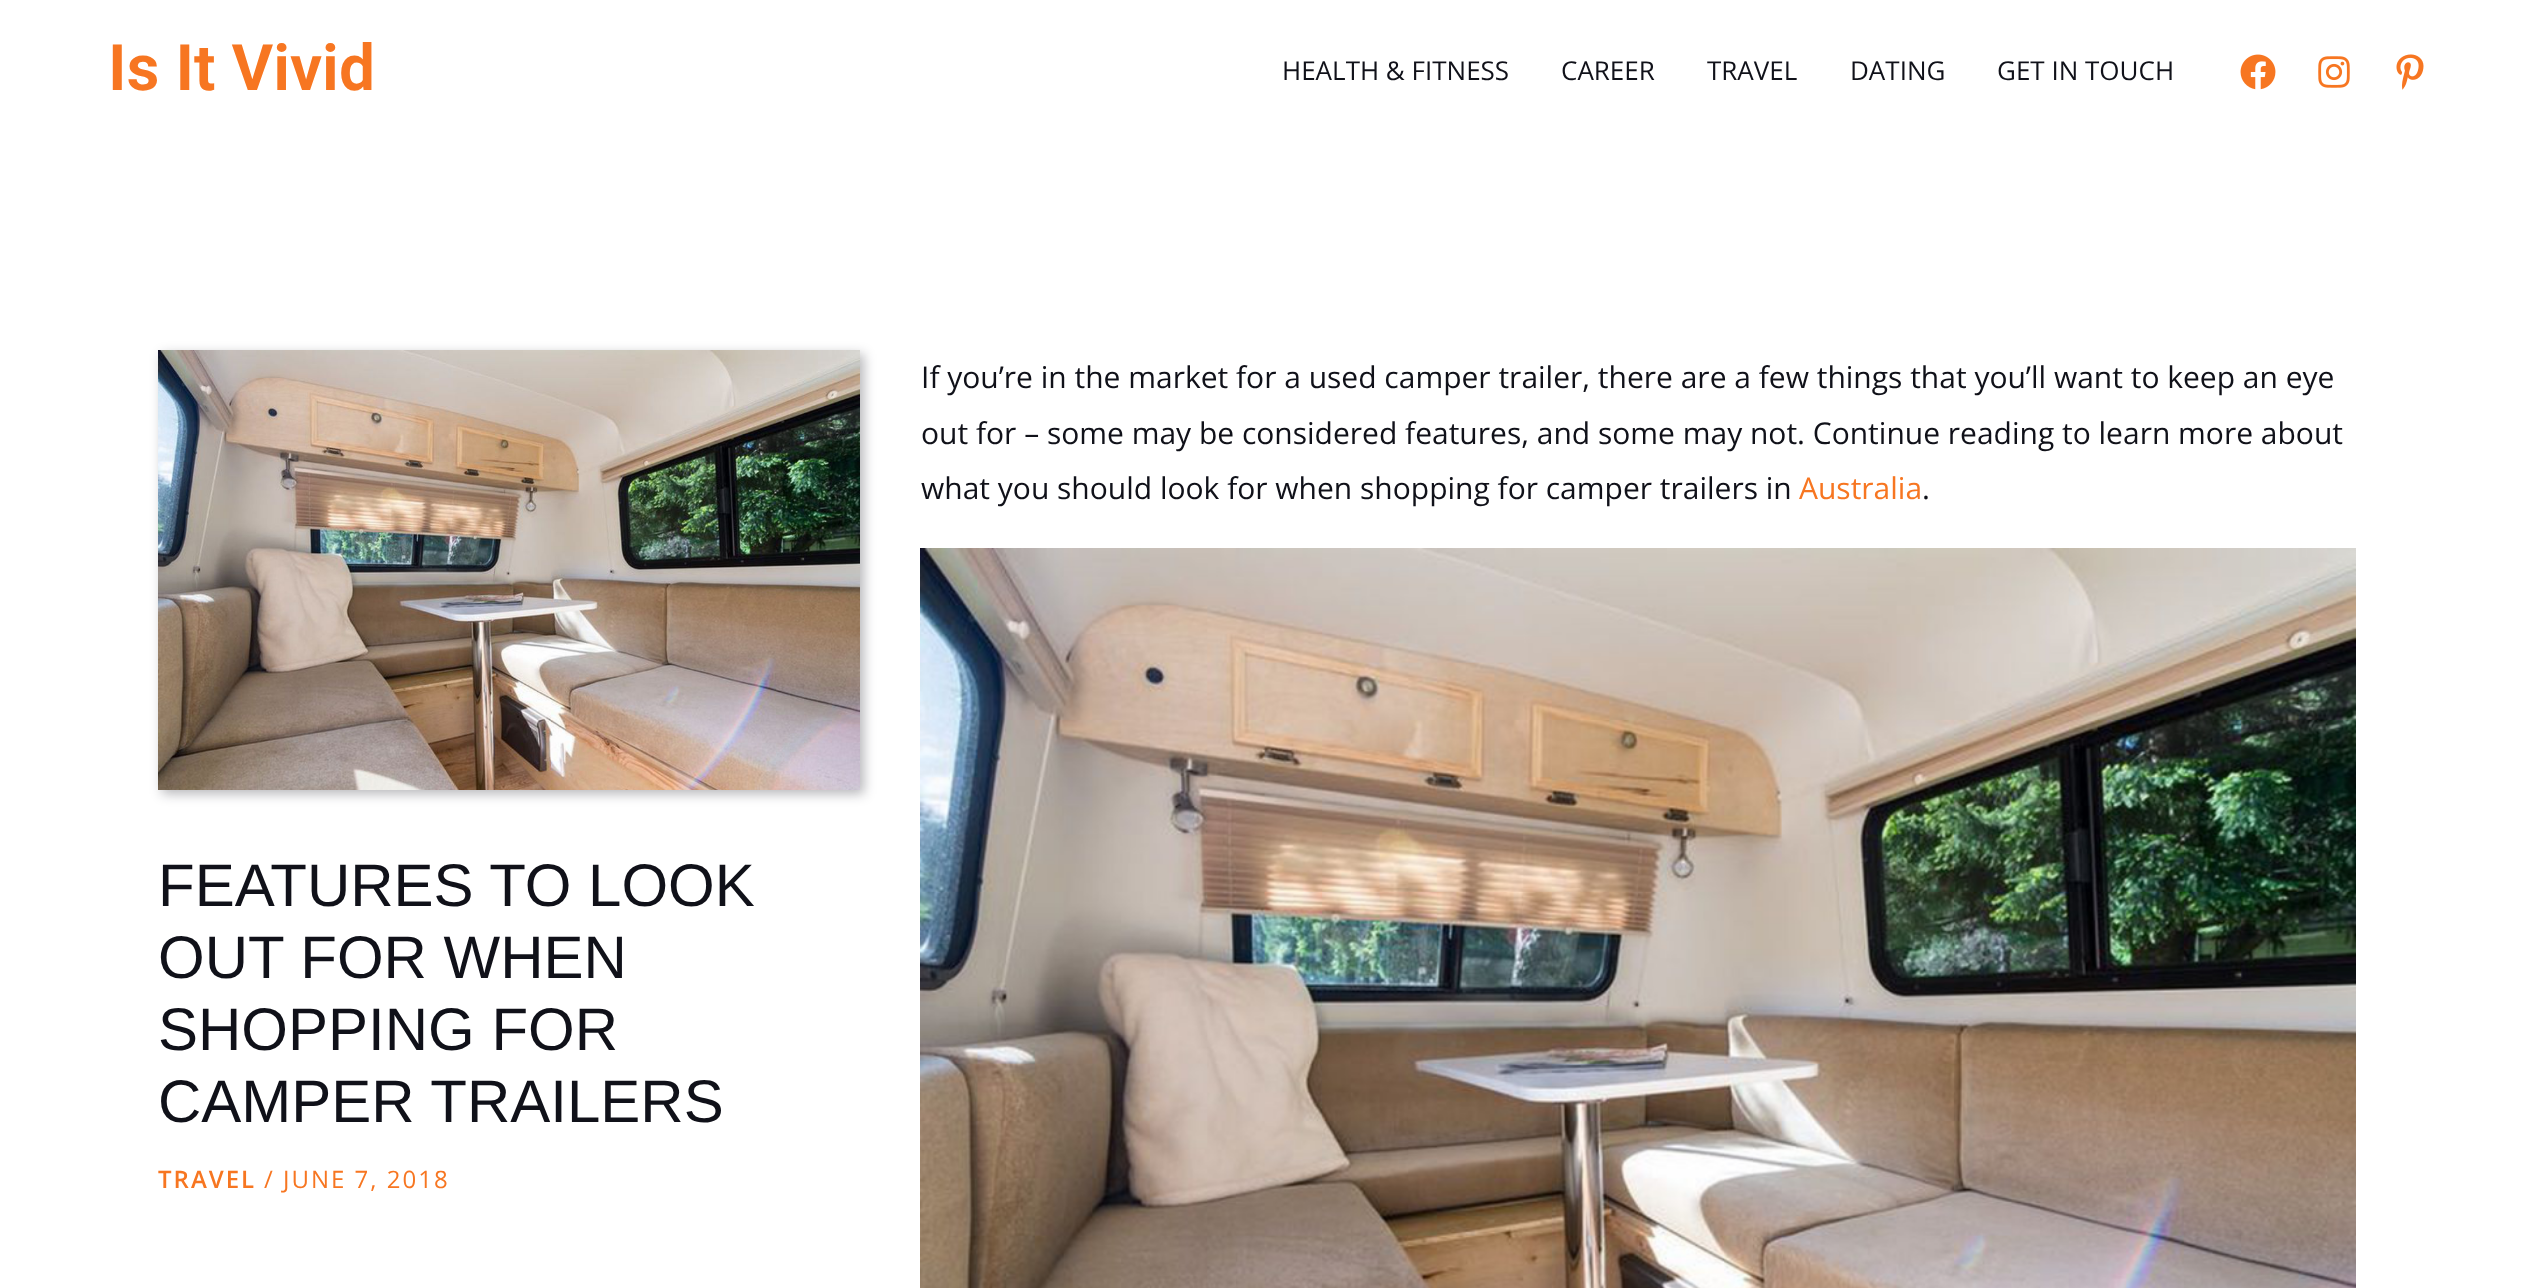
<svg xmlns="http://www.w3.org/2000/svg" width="2536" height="1288">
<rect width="100%" height="100%" fill="#fff"/>
<text x="108" y="90" style="font-family:Heebo;font-size:64px;font-weight:600;fill:#f77621">Is It Vivid</text>
<text x="1282" y="80" style="font-family:Open Sans;font-size:26px;fill:#101119">HEALTH &amp; FITNESS</text>
<text x="1561" y="80" style="font-family:Open Sans;font-size:26px;fill:#101119">CAREER</text>
<text x="1707" y="80" style="font-family:Open Sans;font-size:26px;fill:#101119">TRAVEL</text>
<text x="1850" y="80" style="font-family:Open Sans;font-size:26px;fill:#101119">DATING</text>
<text x="1997" y="80" style="font-family:Open Sans;font-size:26px;fill:#101119">GET IN TOUCH</text>
<image x="2240" y="54" width="36" height="36" href="media/1.png"/>
<image x="2318" y="56" width="32" height="32" href="media/2.png"/>
<image x="2396" y="54" width="28" height="36" href="media/3.png"/>
<text x="921" y="388" style="font-family:Open Sans;font-size:30px;fill:#101119">If you’re in the market for a used camper trailer, there are a few things that you’ll want to keep an eye</text>
<text x="921" y="444" style="font-family:Open Sans;font-size:30px;fill:#101119">out for – some may be considered features, and some may not. Continue reading to learn more about</text>
<text x="921" y="499" style="font-family:Open Sans;font-size:30px;fill:#101119">what you should look for when shopping for camper trailers in</text>
<text x="1799" y="499" style="font-family:Open Sans;font-size:30px;fill:#f77621">Australia</text>
<text x="1922" y="499" style="font-family:Open Sans;font-size:30px;fill:#101119">.</text>
<image x="920" y="548" width="1436" height="740" href="media/4.png"/>
<rect x="162" y="354" width="702" height="440" fill="#1011194d" filter="blur(6px)"/>
<image x="158" y="350" width="702" height="440" href="media/5.png"/>
<text x="158" y="906" style="font-family:Liberation Sans;font-size:60px;fill:#101119">FEATURES TO LOOK</text>
<text x="158" y="978" style="font-family:Liberation Sans;font-size:60px;fill:#101119">OUT FOR WHEN</text>
<text x="158" y="1050" style="font-family:Liberation Sans;font-size:60px;fill:#101119">SHOPPING FOR</text>
<text x="158" y="1122" style="font-family:Liberation Sans;font-size:60px;fill:#101119">CAMPER TRAILERS</text>
<text x="158" y="1188" style="font-family:Open Sans;font-size:24px;font-weight:600;letter-spacing:2px;fill:#f77621">TRAVEL</text>
<text x="264" y="1188" style="font-family:Open Sans;font-size:24px;letter-spacing:2px;fill:#f77621">/ JUNE 7, 2018</text>
</svg>
